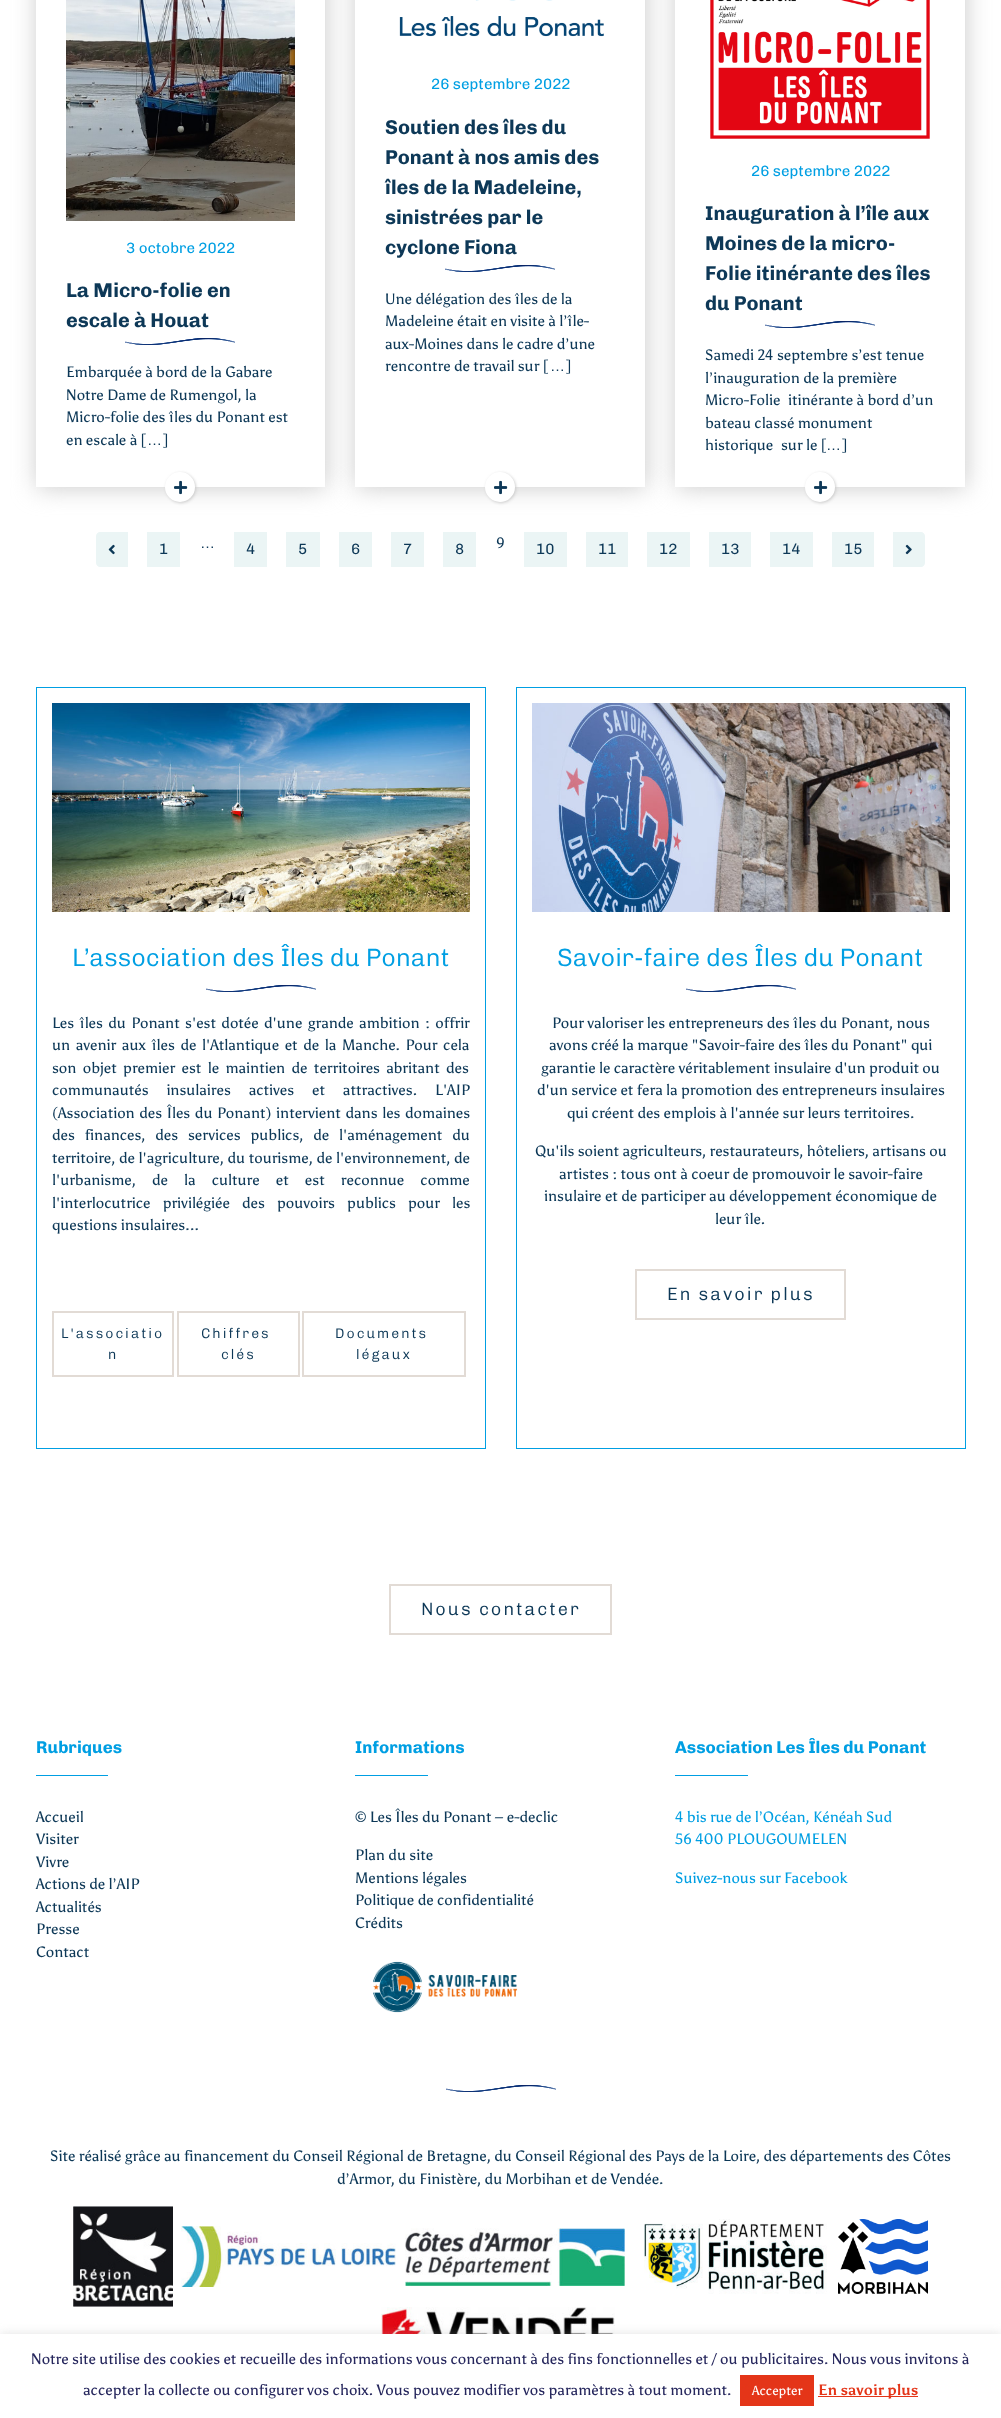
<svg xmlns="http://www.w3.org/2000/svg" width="1001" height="2418">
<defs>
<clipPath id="clip1"><path d="M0 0h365v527h-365zm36-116h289v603h-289z" clip-rule="evenodd"/></clipPath>
<clipPath id="clip2"><path d="M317 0h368v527h-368zm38-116h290v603h-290z" clip-rule="evenodd"/></clipPath>
<clipPath id="clip3"><path d="M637 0h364v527h-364zm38-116h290v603h-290z" clip-rule="evenodd"/></clipPath>
</defs>
<rect width="100%" height="100%" fill="#fff"/>
<g clip-path="url(#clip1)">
<rect x="37" y="-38" width="289" height="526" fill="#ccc" filter="blur(12.5px)"/>
</g>
<image x="66" y="0" width="229" height="221" href="media/1.png"/>
<text x="126" y="253" style="font-family:Chivo;font-size:15px;fill:#009fe3">3 octobre 2022</text>
<text x="66" y="297" style="font-family:Chivo;font-size:20px;font-weight:bold;fill:#0d3857">La Micro-folie en</text>
<text x="66" y="327" style="font-family:Chivo;font-size:20px;font-weight:bold;fill:#0d3857">escale à Houat</text>
<image x="125" y="338" width="110" height="7" href="media/2.png"/>
<text x="66" y="377" style="font-family:Asul;font-size:15px;fill:#0d3857">Embarquée à bord de la Gabare</text>
<text x="66" y="400" style="font-family:Asul;font-size:15px;fill:#0d3857">Notre Dame de Rumengol, la</text>
<text x="66" y="422" style="font-family:Asul;font-size:15px;fill:#0d3857">Micro-folie des îles du Ponant est</text>
<text x="66" y="445" style="font-family:Asul;font-size:15px;fill:#0d3857">en escale à [</text>
<text x="147" y="445" style="font-family:Liberation Sans;font-size:15px;fill:#0d3857">…</text>
<text x="162" y="445" style="font-family:Asul;font-size:15px;fill:#0d3857">]</text>
<rect x="166" y="473" width="30" height="30" rx="15" fill="#ccc" filter="blur(1.5px)"/>
<circle cx="180" cy="487" r="15" fill="#fff"/>
<image x="174" y="480" width="14" height="15" href="media/3.png"/>
<g clip-path="url(#clip2)">
<rect x="356" y="-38" width="290" height="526" fill="#ccc" filter="blur(12.5px)"/>
</g>
<image x="399" y="0" width="205" height="37" href="media/4.png"/>
<text x="431" y="89" style="font-family:Chivo;font-size:15px;fill:#009fe3">26 septembre 2022</text>
<text x="385" y="134" style="font-family:Chivo;font-size:20px;font-weight:bold;fill:#0d3857">Soutien des îles du</text>
<text x="385" y="164" style="font-family:Chivo;font-size:20px;font-weight:bold;fill:#0d3857">Ponant à nos amis des</text>
<text x="385" y="194" style="font-family:Chivo;font-size:20px;font-weight:bold;fill:#0d3857">îles de la Madeleine,</text>
<text x="385" y="224" style="font-family:Chivo;font-size:20px;font-weight:bold;fill:#0d3857">sinistrées par le</text>
<text x="385" y="254" style="font-family:Chivo;font-size:20px;font-weight:bold;fill:#0d3857">cyclone Fiona</text>
<image x="445" y="265" width="110" height="7" href="media/2.png"/>
<text x="385" y="304" style="font-family:Asul;font-size:15px;fill:#0d3857">Une délégation des îles de la</text>
<text x="385" y="326" style="font-family:Asul;font-size:15px;fill:#0d3857">Madeleine était en visite à l’île-</text>
<text x="385" y="349" style="font-family:Asul;font-size:15px;fill:#0d3857">aux-Moines dans le cadre d’une</text>
<text x="385" y="371" style="font-family:Asul;font-size:15px;fill:#0d3857">rencontre de travail sur [</text>
<text x="550" y="371" style="font-family:Liberation Sans;font-size:15px;fill:#0d3857">…</text>
<text x="565" y="371" style="font-family:Asul;font-size:15px;fill:#0d3857">]</text>
<rect x="486" y="473" width="30" height="30" rx="15" fill="#ccc" filter="blur(1.5px)"/>
<circle cx="500" cy="487" r="15" fill="#fff"/>
<image x="494" y="480" width="14" height="15" href="media/3.png"/>
<g clip-path="url(#clip3)">
<rect x="676" y="-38" width="290" height="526" fill="#ccc" filter="blur(12.5px)"/>
</g>
<image x="710" y="0" width="220" height="139" href="media/5.png"/>
<text x="751" y="176" style="font-family:Chivo;font-size:15px;fill:#009fe3">26 septembre 2022</text>
<text x="705" y="220" style="font-family:Chivo;font-size:20px;font-weight:bold;fill:#0d3857">Inauguration à l’île aux</text>
<text x="705" y="250" style="font-family:Chivo;font-size:20px;font-weight:bold;fill:#0d3857">Moines de la micro-</text>
<text x="705" y="280" style="font-family:Chivo;font-size:20px;font-weight:bold;fill:#0d3857">Folie itinérante des îles</text>
<text x="705" y="310" style="font-family:Chivo;font-size:20px;font-weight:bold;fill:#0d3857">du Ponant</text>
<image x="765" y="321" width="110" height="7" href="media/2.png"/>
<text x="705" y="360" style="font-family:Asul;font-size:15px;fill:#0d3857">Samedi 24 septembre s’est tenue</text>
<text x="705" y="383" style="font-family:Asul;font-size:15px;fill:#0d3857">l’inauguration de la première</text>
<text x="705" y="405" style="font-family:Asul;font-size:15px;fill:#0d3857">Micro-Folie</text>
<text x="788" y="405" style="font-family:Asul;font-size:15px;fill:#0d3857">itinérante à bord d’un</text>
<text x="705" y="428" style="font-family:Asul;font-size:15px;fill:#0d3857">bateau classé monument</text>
<text x="705" y="450" style="font-family:Asul;font-size:15px;fill:#0d3857">historique</text>
<text x="781" y="450" style="font-family:Asul;font-size:15px;fill:#0d3857">sur le [</text>
<text x="826" y="450" style="font-family:Liberation Sans;font-size:15px;fill:#0d3857">…</text>
<text x="841" y="450" style="font-family:Asul;font-size:15px;fill:#0d3857">]</text>
<rect x="806" y="473" width="30" height="30" rx="15" fill="#ccc" filter="blur(1.5px)"/>
<circle cx="820" cy="487" r="15" fill="#fff"/>
<image x="814" y="480" width="14" height="15" href="media/3.png"/>
<path d="M100 532h28v35h-28c-2 0-4-2-4-4v-27c0-2 2-4 4-4z" fill="#ebf5f5"/>
<image x="108" y="544" width="7" height="11" href="media/6.png"/>
<rect x="147" y="532" width="33" height="35" fill="#ebf5f5"/>
<text x="159" y="554" style="font-family:Chivo;font-size:15px;fill:#0d3857">1</text>
<text x="200" y="548" style="font-family:Liberation Sans;font-size:15px;fill:#0d3857">…</text>
<rect x="234" y="532" width="33" height="35" fill="#ebf5f5"/>
<text x="246" y="554" style="font-family:Chivo;font-size:15px;fill:#0d3857">4</text>
<rect x="286" y="532" width="34" height="35" fill="#ebf5f5"/>
<text x="298" y="554" style="font-family:Chivo;font-size:15px;fill:#0d3857">5</text>
<rect x="339" y="532" width="33" height="35" fill="#ebf5f5"/>
<text x="351" y="554" style="font-family:Chivo;font-size:15px;fill:#0d3857">6</text>
<rect x="391" y="532" width="33" height="35" fill="#ebf5f5"/>
<text x="403" y="554" style="font-family:Chivo;font-size:15px;fill:#0d3857">7</text>
<rect x="443" y="532" width="33" height="35" fill="#ebf5f5"/>
<text x="455" y="554" style="font-family:Chivo;font-size:15px;fill:#0d3857">8</text>
<text x="496" y="548" style="font-family:Asul;font-size:15px;fill:#0d3857">9</text>
<rect x="524" y="532" width="43" height="35" fill="#ebf5f5"/>
<text x="536" y="554" style="font-family:Chivo;font-size:15px;fill:#0d3857">10</text>
<rect x="586" y="532" width="42" height="35" fill="#ebf5f5"/>
<text x="598" y="554" style="font-family:Chivo;font-size:15px;fill:#0d3857">11</text>
<rect x="647" y="532" width="43" height="35" fill="#ebf5f5"/>
<text x="659" y="554" style="font-family:Chivo;font-size:15px;fill:#0d3857">12</text>
<rect x="709" y="532" width="42" height="35" fill="#ebf5f5"/>
<text x="721" y="554" style="font-family:Chivo;font-size:15px;fill:#0d3857">13</text>
<rect x="770" y="532" width="43" height="35" fill="#ebf5f5"/>
<text x="782" y="554" style="font-family:Chivo;font-size:15px;fill:#0d3857">14</text>
<rect x="832" y="532" width="42" height="35" fill="#ebf5f5"/>
<text x="844" y="554" style="font-family:Chivo;font-size:15px;fill:#0d3857">15</text>
<path d="M893 532h28c2 0 4 2 4 4v27c0 2-2 4-4 4h-28z" fill="#ebf5f5"/>
<image x="905" y="544" width="7" height="11" href="media/7.png"/>
<rect x="36.5" y="687.5" width="449" height="761" fill="none" stroke="#009fe3"/>
<image x="52" y="703" width="418" height="209" href="media/8.png"/>
<text x="72" y="966" style="font-family:Chivo;font-size:25px;font-weight:300;fill:#009fe3">L’association des Îles du Ponant</text>
<image x="206" y="985" width="110" height="7" href="media/2.png"/>
<text x="52" y="1028" word-spacing="2" style="font-family:Asul;font-size:15px;fill:#0d3857">Les îles du Ponant s'est dotée d'une grande ambition : offrir</text>
<text x="52" y="1050" word-spacing="2.25" style="font-family:Asul;font-size:15px;fill:#0d3857">un avenir aux îles de l'Atlantique et de la Manche. Pour cela</text>
<text x="52" y="1073" word-spacing="3" style="font-family:Asul;font-size:15px;fill:#0d3857">son objet premier est le maintien de territoires abritant des</text>
<text x="52" y="1095" word-spacing="14.5" style="font-family:Asul;font-size:15px;fill:#0d3857">communautés insulaires actives et attractives. L'AIP</text>
<text x="52" y="1118" word-spacing="1.25" style="font-family:Asul;font-size:15px;fill:#0d3857">(Association des Îles du Ponant) intervient dans les domaines</text>
<text x="52" y="1140" word-spacing="6.5" style="font-family:Asul;font-size:15px;fill:#0d3857">des finances, des services publics, de l'aménagement du</text>
<text x="52" y="1163" word-spacing="0.25" style="font-family:Asul;font-size:15px;fill:#0d3857">territoire, de l'agriculture, du tourisme, de l'environnement, de</text>
<text x="52" y="1185" word-spacing="12.75" style="font-family:Asul;font-size:15px;fill:#0d3857">l'urbanisme, de la culture et est reconnue comme</text>
<text x="52" y="1208" word-spacing="8.75" style="font-family:Asul;font-size:15px;fill:#0d3857">l'interlocutrice privilégiée des pouvoirs publics pour les</text>
<text x="52" y="1230" style="font-family:Asul;font-size:15px;fill:#0d3857">questions insulaires...</text>
<rect x="53" y="1312" width="120" height="64" fill="none" stroke="#e2dbd5" stroke-width="2"/>
<text x="61" y="1338" style="font-family:Chivo;font-size:14px;font-weight:300;letter-spacing:2px;fill:#0d3857">L'associatio</text>
<text x="108" y="1359" style="font-family:Chivo;font-size:14px;font-weight:300;letter-spacing:2px;fill:#0d3857">n</text>
<rect x="178" y="1312" width="121" height="64" fill="none" stroke="#e2dbd5" stroke-width="2"/>
<text x="201" y="1338" style="font-family:Chivo;font-size:14px;font-weight:300;letter-spacing:2px;fill:#0d3857">Chiffres</text>
<text x="221" y="1359" style="font-family:Chivo;font-size:14px;font-weight:300;letter-spacing:2px;fill:#0d3857">clés</text>
<rect x="303" y="1312" width="162" height="64" fill="none" stroke="#e2dbd5" stroke-width="2"/>
<text x="335" y="1338" style="font-family:Chivo;font-size:14px;font-weight:300;letter-spacing:2px;fill:#0d3857">Documents</text>
<text x="356" y="1359" style="font-family:Chivo;font-size:14px;font-weight:300;letter-spacing:2px;fill:#0d3857">légaux</text>
<rect x="516.5" y="687.5" width="449" height="761" fill="none" stroke="#009fe3"/>
<image x="532" y="703" width="418" height="209" href="media/9.png"/>
<text x="557" y="966" style="font-family:Chivo;font-size:25px;font-weight:300;fill:#009fe3">Savoir-faire des Îles du Ponant</text>
<image x="686" y="985" width="110" height="7" href="media/2.png"/>
<text x="552" y="1028" style="font-family:Asul;font-size:15px;fill:#0d3857">Pour valoriser les entrepreneurs des îles du Ponant, nous</text>
<text x="549" y="1050" style="font-family:Asul;font-size:15px;fill:#0d3857">avons créé la marque "Savoir-faire des îles du Ponant" qui</text>
<text x="541" y="1073" style="font-family:Asul;font-size:15px;fill:#0d3857">garantie le caractère véritablement insulaire d'un produit ou</text>
<text x="537" y="1095" style="font-family:Asul;font-size:15px;fill:#0d3857">d'un service et fera la promotion des entrepreneurs insulaires</text>
<text x="567" y="1118" style="font-family:Asul;font-size:15px;fill:#0d3857">qui créent des emplois à l'année sur leurs territoires.</text>
<text x="535" y="1156" style="font-family:Asul;font-size:15px;fill:#0d3857">Qu'ils soient agriculteurs, restaurateurs, hôteliers, artisans ou</text>
<text x="559" y="1179" style="font-family:Asul;font-size:15px;fill:#0d3857">artistes : tous ont à coeur de promouvoir le savoir-faire</text>
<text x="544" y="1201" style="font-family:Asul;font-size:15px;fill:#0d3857">insulaire et de participer au développement économique de</text>
<text x="715" y="1224" style="font-family:Asul;font-size:15px;fill:#0d3857">leur île.</text>
<rect x="636" y="1270" width="209" height="49" fill="none" stroke="#e2dbd5" stroke-width="2"/>
<text x="667" y="1300" style="font-family:Chivo;font-size:18px;font-weight:300;letter-spacing:2px;fill:#0d3857">En savoir plus</text>
<rect x="390" y="1585" width="221" height="49" fill="none" stroke="#e2dbd5" stroke-width="2"/>
<text x="421" y="1615" style="font-family:Chivo;font-size:18px;font-weight:300;letter-spacing:2px;fill:#0d3857">Nous contacter</text>
<text x="36" y="1753" style="font-family:Chivo;font-size:17px;font-weight:bold;fill:#009fe3">Rubriques</text>
<rect x="36" y="1775" width="72" height="1" fill="#009fe3"/>
<text x="36" y="1822" style="font-family:Asul;font-size:15px;fill:#0d3857">Accueil</text>
<text x="36" y="1844" style="font-family:Asul;font-size:15px;fill:#0d3857">Visiter</text>
<text x="36" y="1867" style="font-family:Asul;font-size:15px;fill:#0d3857">Vivre</text>
<text x="36" y="1889" style="font-family:Asul;font-size:15px;fill:#0d3857">Actions de l’AIP</text>
<text x="36" y="1912" style="font-family:Asul;font-size:15px;fill:#0d3857">Actualités</text>
<text x="36" y="1934" style="font-family:Asul;font-size:15px;fill:#0d3857">Presse</text>
<text x="36" y="1957" style="font-family:Asul;font-size:15px;fill:#0d3857">Contact</text>
<text x="355" y="1753" style="font-family:Chivo;font-size:17px;font-weight:bold;fill:#009fe3">Informations</text>
<rect x="355" y="1775" width="73" height="1" fill="#009fe3"/>
<text x="355" y="1822" style="font-family:Asul;font-size:15px;fill:#0d3857">© Les Îles du Ponant – e-declic</text>
<text x="355" y="1860" style="font-family:Asul;font-size:15px;fill:#0d3857">Plan du site</text>
<text x="355" y="1883" style="font-family:Asul;font-size:15px;fill:#0d3857">Mentions légales</text>
<text x="355" y="1905" style="font-family:Asul;font-size:15px;fill:#0d3857">Politique de confidentialité</text>
<text x="355" y="1928" style="font-family:Asul;font-size:15px;fill:#0d3857">Crédits</text>
<image x="373" y="1961" width="145" height="52" href="media/10.png"/>
<text x="675" y="1753" style="font-family:Chivo;font-size:17px;font-weight:bold;fill:#009fe3">Association Les Îles du Ponant</text>
<rect x="675" y="1775" width="73" height="1" fill="#009fe3"/>
<text x="675" y="1822" style="font-family:Asul;font-size:15px;fill:#009fe3">4 bis rue de l’Océan, Kénéah Sud</text>
<text x="675" y="1844" style="font-family:Asul;font-size:15px;fill:#009fe3">56 400 PLOUGOUMELEN</text>
<text x="675" y="1883" style="font-family:Asul;font-size:15px;fill:#009fe3">Suivez-nous sur Facebook</text>
<image x="446" y="2085" width="110" height="7" href="media/2.png"/>
<text x="50" y="2161" style="font-family:Asul;font-size:15px;fill:#0d3857">Site réalisé grâce au financement du Conseil Régional de Bretagne, du Conseil Régional des Pays de la Loire, des départements des Côtes</text>
<text x="337" y="2184" style="font-family:Asul;font-size:15px;fill:#0d3857">d’Armor, du Finistère, du Morbihan et de Vendée.</text>
<image x="73" y="2206" width="100" height="101" href="media/11.png"/>
<image x="181" y="2226" width="215" height="61" href="media/12.png"/>
<image x="405" y="2228" width="220" height="58" href="media/13.png"/>
<image x="644" y="2219" width="183" height="75" href="media/14.png"/>
<image x="838" y="2219" width="90" height="75" href="media/15.png"/>
<image x="381" y="2307" width="234" height="27" href="media/16.png"/>
<rect y="2333" width="1001" height="84" fill="#acabab4d" filter="blur(5px)"/>
<rect y="2334" width="1001" height="84" fill="#fff"/>
<text x="31" y="2364" style="font-family:Asul;font-size:15px;fill:#26275d">Notre site utilise des cookies et recueille des informations vous concernant à des fins fonctionnelles et / ou publicitaires. Nous vous invitons à</text>
<text x="83" y="2395" style="font-family:Asul;font-size:15px;fill:#26275d">accepter la collecte ou configurer vos choix. Vous pouvez modifier vos paramètres à tout moment.</text>
<rect x="740" y="2375" width="74" height="31" fill="#e43518"/>
<text x="752" y="2395" style="font-family:Asul;font-size:13px;fill:#fff">Accepter</text>
<rect x="818" y="2396" width="100" height="1" fill="#e43518"/>
<text x="818" y="2395" style="font-family:Asul;font-size:15px;font-weight:bold;fill:#e43518">En savoir plus</text>
</svg>
